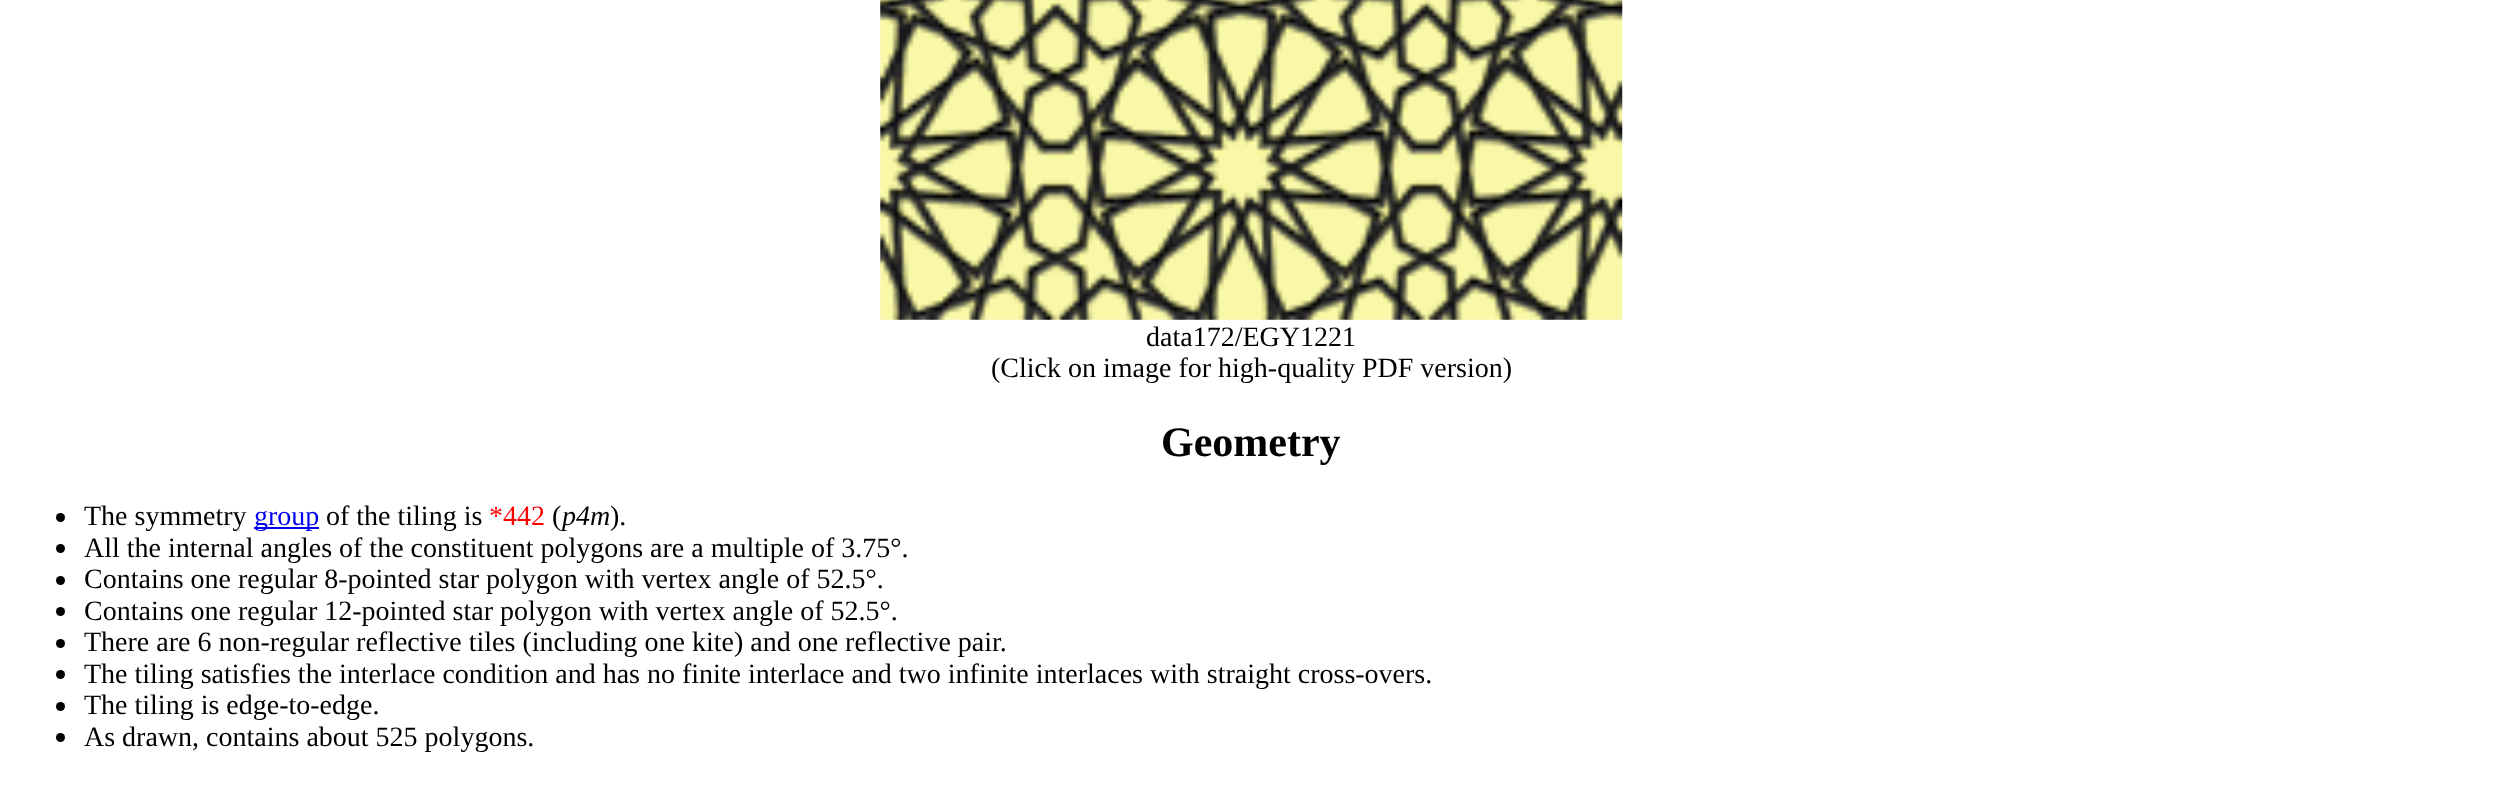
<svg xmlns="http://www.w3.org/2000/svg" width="2501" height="790">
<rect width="100%" height="100%" fill="#fff"/>
<image x="880" y="0" width="743" height="320" href="media/1.png"/>
<text x="1146" y="346" style="font-family:Liberation Serif;font-size:28px;fill:#000">data172/EGY1221</text>
<text x="991" y="377" style="font-family:Liberation Serif;font-size:28px;fill:#000">(Click on image for high-quality PDF version)</text>
<text x="1161" y="456" style="font-family:Liberation Serif;font-size:42px;font-weight:bold;fill:#000">Geometry</text>
<circle cx="60.5" cy="517.5" r="4.5" fill="#000"/>
<text x="84" y="525" style="font-family:Liberation Serif;font-size:28px;fill:#000">The symmetry</text>
<rect x="254" y="527" width="65" height="2" fill="#00e"/>
<text x="254" y="525" style="font-family:Liberation Serif;font-size:28px;fill:#00e">group</text>
<text x="326" y="525" style="font-family:Liberation Serif;font-size:28px;fill:#000">of the tiling is</text>
<text x="489" y="525" style="font-family:Liberation Serif;font-size:28px;fill:#f00">*442</text>
<text x="552" y="525" style="font-family:Liberation Serif;font-size:28px;fill:#000">(</text>
<text x="562" y="525" style="font-family:Liberation Serif;font-size:28px;font-style:italic;fill:#000">p4m</text>
<text x="610" y="525" style="font-family:Liberation Serif;font-size:28px;fill:#000">).</text>
<circle cx="60.5" cy="548.5" r="4.5" fill="#000"/>
<text x="84" y="557" style="font-family:Liberation Serif;font-size:28px;fill:#000">All the internal angles of the constituent polygons are a multiple of 3.75°.</text>
<circle cx="60.5" cy="580.5" r="4.5" fill="#000"/>
<text x="84" y="588" style="font-family:Liberation Serif;font-size:28px;fill:#000">Contains one regular 8-pointed star polygon with vertex angle of 52.5°.</text>
<circle cx="60.5" cy="611.5" r="4.5" fill="#000"/>
<text x="84" y="620" style="font-family:Liberation Serif;font-size:28px;fill:#000">Contains one regular 12-pointed star polygon with vertex angle of 52.5°.</text>
<circle cx="60.5" cy="643.5" r="4.5" fill="#000"/>
<text x="84" y="651" style="font-family:Liberation Serif;font-size:28px;fill:#000">There are 6 non-regular reflective tiles (including one kite) and one reflective pair.</text>
<circle cx="60.5" cy="674.5" r="4.5" fill="#000"/>
<text x="84" y="683" style="font-family:Liberation Serif;font-size:28px;fill:#000">The tiling satisfies the interlace condition and has no finite interlace and two infinite interlaces with straight cross-overs.</text>
<circle cx="60.5" cy="706.5" r="4.5" fill="#000"/>
<text x="84" y="714" style="font-family:Liberation Serif;font-size:28px;fill:#000">The tiling is edge-to-edge.</text>
<circle cx="60.5" cy="737.5" r="4.5" fill="#000"/>
<text x="84" y="746" style="font-family:Liberation Serif;font-size:28px;fill:#000">As drawn, contains about 525 polygons.</text>
</svg>
